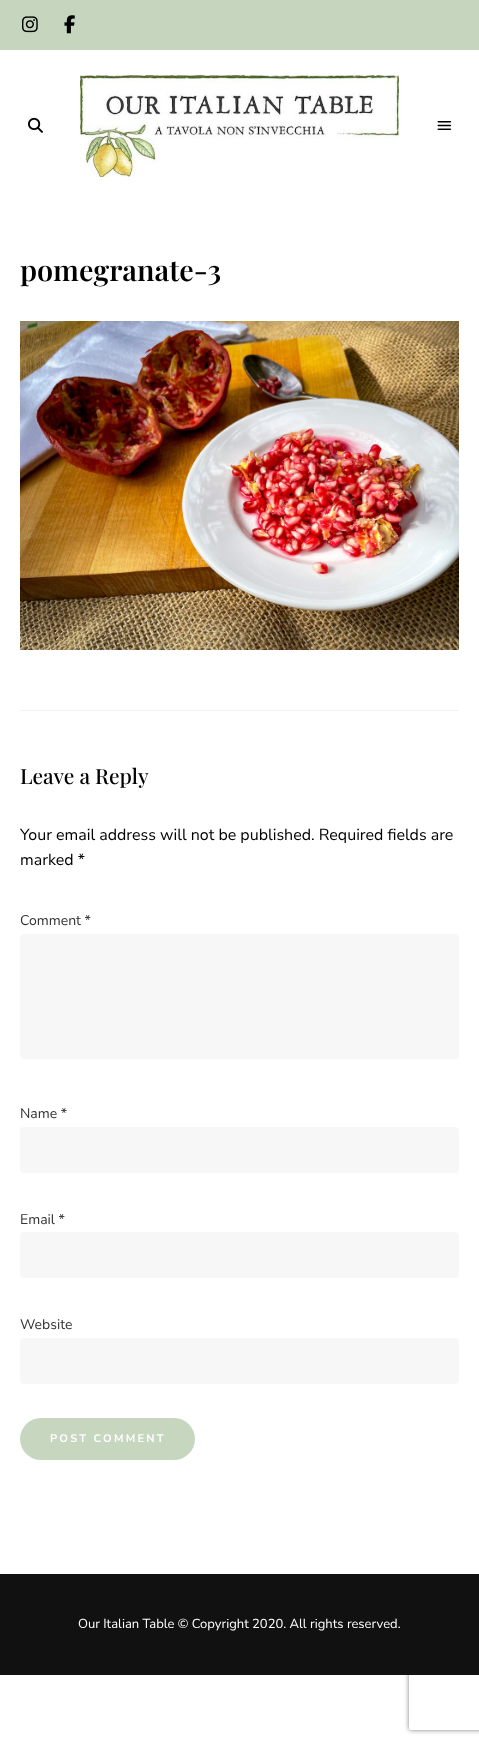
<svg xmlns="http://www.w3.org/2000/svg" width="479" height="1744">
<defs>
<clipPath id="clip1"><path d="M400 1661h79v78h-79zm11 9h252c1 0 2 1 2 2v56c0 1-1 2-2 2h-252c-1 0-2-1-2-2v-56c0-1 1-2 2-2z" clip-rule="evenodd"/></clipPath>
</defs>
<rect width="100%" height="100%" fill="#fff"/>
<rect width="479" height="50" fill="#c6d6be"/>
<image x="22" y="16" width="16" height="17" href="media/1.png"/>
<image x="64" y="15" width="11" height="19" href="media/2.png"/>
<image x="28" y="117" width="15" height="16" href="media/3.png"/>
<image x="80" y="75" width="319" height="102" href="media/4.png"/>
<image x="437" y="121" width="15" height="9" href="media/5.png"/>
<text x="20" y="281" style="font-family:Playfair Display;font-size:28.75px;font-weight:600;fill:#000">pomegranate-3</text>
<image x="20" y="321" width="439" height="329" href="media/6.png"/>
<rect x="20" y="710" width="439" height="1" fill="#f2f2f2"/>
<text x="20" y="784" style="font-family:Playfair Display;font-size:21px;font-weight:500;fill:#000">Leave a Reply</text>
<text x="20" y="840" style="font-family:Nunito Sans;font-size:16px;fill:#000">Your email address will not be published. Required fields are</text>
<text x="20" y="865" style="font-family:Nunito Sans;font-size:16px;fill:#000">marked *</text>
<text x="20" y="925" style="font-family:Nunito Sans;font-size:14px;fill:#333">Comment *</text>
<rect x="20" y="934" width="439" height="125" rx="4" fill="#f7f7f7"/>
<text x="20" y="1118" style="font-family:Nunito Sans;font-size:14px;fill:#333">Name *</text>
<rect x="20" y="1127" width="439" height="46" rx="4" fill="#f7f7f7"/>
<text x="20" y="1224" style="font-family:Nunito Sans;font-size:14px;fill:#333">Email *</text>
<rect x="20" y="1232" width="439" height="46" rx="4" fill="#f7f7f7"/>
<text x="20" y="1329" style="font-family:Nunito Sans;font-size:14px;fill:#333">Website</text>
<rect x="20" y="1338" width="439" height="46" rx="4" fill="#f7f7f7"/>
<rect x="20" y="1418" width="175" height="42" rx="21" fill="#c6d6bf"/>
<text x="50" y="1442" style="font-family:Nunito Sans;font-size:11px;font-weight:bold;letter-spacing:2.25px;fill:#fff">POST COMMENT</text>
<g clip-path="url(#clip1)">
<rect x="409" y="1670" width="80" height="60" rx="2" fill="#808080" filter="blur(2.5px)"/>
</g>
<rect y="1574" width="479" height="101" fill="#111"/>
<text x="78" y="1628" style="font-family:Nunito Sans;font-size:13px;fill:#fff">Our Italian Table © Copyright 2020. All rights reserved.</text>
</svg>
